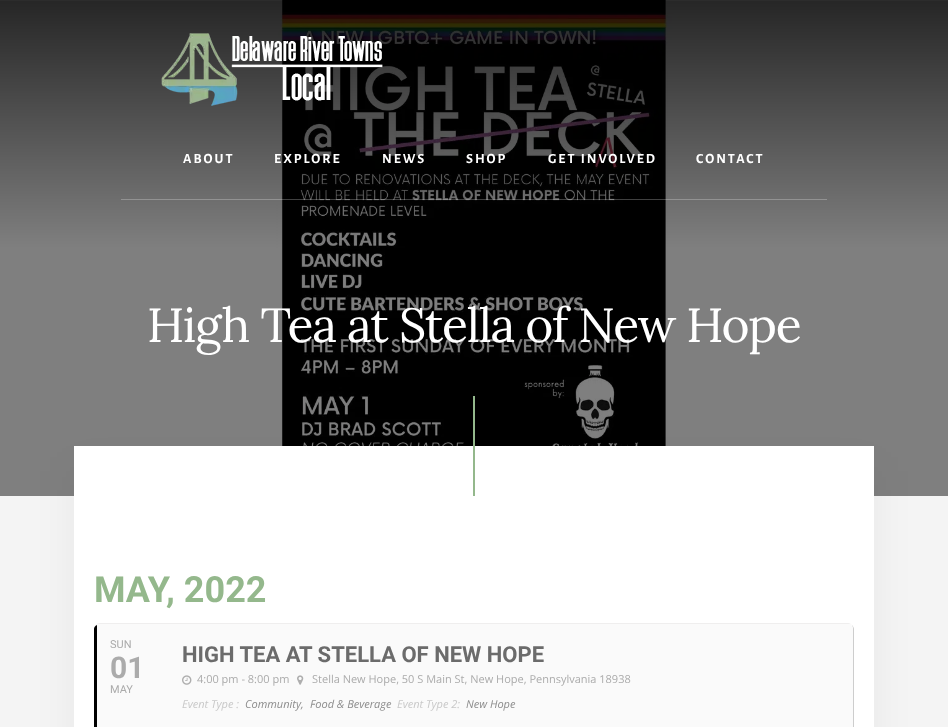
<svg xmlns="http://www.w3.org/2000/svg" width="948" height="727">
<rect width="100%" height="100%" fill="#f4f4f4"/>
<image x="0" y="0" width="948" height="496" href="media/1.png"/>
<image x="161" y="33" width="222" height="73" href="media/2.png"/>
<rect x="121" y="199" width="706" height="1" fill="#ffffff40"/>
<text x="183" y="163" style="font-family:Alegreya Sans;font-size:14px;font-weight:bold;letter-spacing:2px;fill:#fff">ABOUT</text>
<text x="274" y="163" style="font-family:Alegreya Sans;font-size:14px;font-weight:bold;letter-spacing:2px;fill:#fff">EXPLORE</text>
<text x="382" y="163" style="font-family:Alegreya Sans;font-size:14px;font-weight:bold;letter-spacing:2px;fill:#fff">NEWS</text>
<text x="466" y="163" style="font-family:Alegreya Sans;font-size:14px;font-weight:bold;letter-spacing:2px;fill:#fff">SHOP</text>
<text x="548" y="163" style="font-family:Alegreya Sans;font-size:14px;font-weight:bold;letter-spacing:2px;fill:#fff">GET INVOLVED</text>
<text x="696" y="163" style="font-family:Alegreya Sans;font-size:14px;font-weight:bold;letter-spacing:2px;fill:#fff">CONTACT</text>
<text x="147" y="342" style="font-family:Lora;font-size:48px;letter-spacing:-1.25px;fill:#fff">High Tea at Stella of New Hope</text>
<rect x="74" y="471" width="800" height="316" fill="#0000000d" filter="blur(20px)"/>
<rect x="74" y="446" width="800" height="281" fill="#fff"/>
<rect x="473" y="396" width="2" height="100" fill="#94b88c"/>
<text x="94" y="602" style="font-family:Roboto;font-size:36px;font-weight:bold;fill:#94b88c">MAY, 2022</text>
<path d="M100 623h748c2 0 3 1 4 2c-1-1-2-1-4-1h-748c-3 0-6 2-6 5c0-3 3-6 6-6z" fill="#efeeee"/>
<path d="M852 625c0 1 1 3 1 4v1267c0 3-2 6-5 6c3 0 6-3 6-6v-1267c0-1-1-3-2-4z" fill="#cdcdcd"/>
<path d="M100 624c-3 0-6 2-6 5v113h759v-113c0-3-2-5-5-5z" fill="#fafafa"/>
<path d="M97 625c-2 1-3 2-3 4v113h3z" fill="#000"/>
<text x="110" y="648" style="font-family:Roboto;font-size:11px;fill:#ababab">SUN</text>
<text x="110" y="678" style="font-family:Roboto;font-size:30px;font-weight:bold;fill:#ababab">01</text>
<text x="110" y="693" style="font-family:Roboto;font-size:11px;fill:#ababab">MAY</text>
<text x="182" y="662" style="font-family:Roboto;font-size:22px;font-weight:bold;fill:#6b6b6b">HIGH TEA AT STELLA OF NEW HOPE</text>
<image x="182" y="675" width="10" height="10" href="media/3.png"/>
<text x="197" y="683" style="font-family:Open Sans;font-size:11px;fill:#ababab">4:00 pm - 8:00 pm</text>
<image x="297" y="675" width="7" height="10" href="media/4.png"/>
<text x="312" y="683" style="font-family:Open Sans;font-size:11px;fill:#ababab">Stella New Hope, 50 S Main St, New Hope, Pennsylvania 18938</text>
<text x="182" y="708" style="font-family:Open Sans;font-size:11px;font-style:italic;fill:#c8c8c8">Event Type :</text>
<text x="245" y="708" style="font-family:Open Sans;font-size:11px;font-style:italic;fill:#8c8c8c">Community,</text>
<text x="310" y="708" style="font-family:Open Sans;font-size:11px;font-style:italic;fill:#8c8c8c">Food &amp; Beverage</text>
<text x="397" y="708" style="font-family:Open Sans;font-size:11px;font-style:italic;fill:#c8c8c8">Event Type 2:</text>
<text x="466" y="708" style="font-family:Open Sans;font-size:11px;font-style:italic;fill:#8c8c8c">New Hope</text>
</svg>
